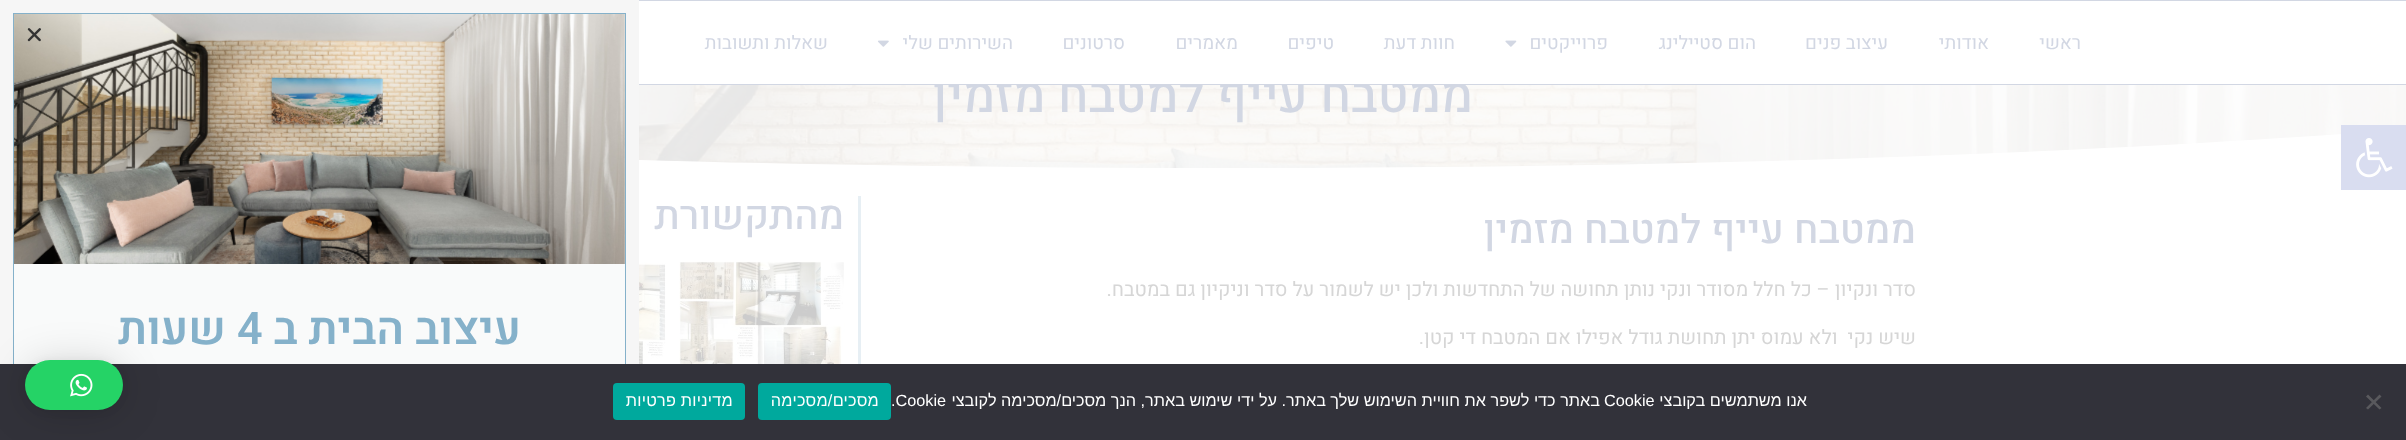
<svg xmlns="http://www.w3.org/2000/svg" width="2406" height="440">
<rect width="100%" height="100%" fill="#fff"/>
<image x="639" y="85" width="1767" height="83" href="media/4.png"/>
<text x="1473" y="112" style="font-family:Heebo;font-size:50px;font-weight:500;direction:rtl;fill:#d2d7e3">ממטבח עייף למטבח מזמין</text>
<rect x="934" y="74" width="530" height="10" fill="#fff"/>
<rect x="639" width="1767" height="1" fill="#d2d7e3"/>
<rect x="639" y="84" width="1767" height="1" fill="#d2d7e3"/>
<text x="2081" y="49" style="font-family:Heebo;font-size:18.75px;direction:rtl;fill:#d2d7e3">ראשי</text>
<text x="1989" y="49" style="font-family:Heebo;font-size:18.75px;direction:rtl;fill:#d2d7e3">אודותי</text>
<text x="1888" y="49" style="font-family:Heebo;font-size:18.75px;direction:rtl;fill:#d2d7e3">עיצוב פנים</text>
<text x="1756" y="49" style="font-family:Heebo;font-size:18.75px;direction:rtl;fill:#d2d7e3">הום סטיילינג</text>
<text x="1608" y="49" style="font-family:Heebo;font-size:18.75px;direction:rtl;fill:#d2d7e3">פרוייקטים</text>
<image x="1505" y="40" width="12" height="7" href="media/1.png"/>
<text x="1455" y="49" style="font-family:Heebo;font-size:18.75px;direction:rtl;fill:#d2d7e3">חוות דעת</text>
<text x="1334" y="49" style="font-family:Heebo;font-size:18.75px;direction:rtl;fill:#d2d7e3">טיפים</text>
<text x="1238" y="49" style="font-family:Heebo;font-size:18.75px;direction:rtl;fill:#d2d7e3">מאמרים</text>
<text x="1125" y="49" style="font-family:Heebo;font-size:18.75px;direction:rtl;fill:#d2d7e3">סרטונים</text>
<text x="1013" y="49" style="font-family:Heebo;font-size:18.75px;direction:rtl;fill:#d2d7e3">השירותים שלי</text>
<image x="877" y="40" width="12" height="7" href="media/2.png"/>
<text x="828" y="49" style="font-family:Heebo;font-size:18.75px;direction:rtl;fill:#d2d7e3">שאלות ותשובות</text>
<path d="M1204 168c-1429-2-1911-127-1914-159v164h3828v-163c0 31-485 159-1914 158z" fill="#fff"/>
<rect x="2341" y="125" width="65" height="65" fill="#d9ddf0"/>
<image x="2356" y="138" width="37" height="40" href="media/3.png"/>
<text x="1916" y="243" style="font-family:Heebo;font-size:40px;font-weight:500;direction:rtl;fill:#d2d7e3">ממטבח עייף למטבח מזמין</text>
<text x="1916" y="296" style="font-family:Heebo;font-size:20px;direction:rtl;fill:#d6d6d6">סדר ונקיון – כל חלל מסודר ונקי נותן תחושה של התחדשות ולכן יש לשמור על סדר וניקיון גם במטבח.</text>
<text x="1916" y="344" style="font-family:Heebo;font-size:20px;direction:rtl;fill:#d6d6d6" xml:space="preserve">שיש נקי  ולא עמוס יתן תחושת גודל אפילו אם המטבח די קטן.</text>
<rect x="858" y="196" width="3" height="168" fill="#e7eff4"/>
<text x="844" y="229" style="font-family:Heebo;font-size:40px;font-weight:500;direction:rtl;fill:#d2d7e3">מהתקשורת</text>
<image x="679" y="261" width="166" height="103" href="media/5.png"/>
<image x="639" y="262" width="27" height="102" href="media/6.png"/>
<rect width="639" height="364" fill="#f6f6f6"/>
<rect x="13.5" y="13.5" width="612" height="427" fill="none" stroke="#85b1ca"/>
<image x="14" y="14" width="611" height="250" href="media/8.png"/>
<image x="27" y="28" width="14" height="14" href="media/7.png"/>
<rect x="14" y="264" width="611" height="100" fill="#f9fafa"/>
<text x="521" y="344" style="font-family:Heebo;font-size:45px;font-weight:600;direction:rtl;fill:#85b1ca">עיצוב הבית ב</text>
<text x="237" y="344" style="font-family:Heebo;font-size:45px;font-weight:600;fill:#85b1ca">4</text>
<text x="226" y="344" style="font-family:Heebo;font-size:45px;font-weight:600;direction:rtl;fill:#85b1ca">שעות</text>
<rect y="364" width="2406" height="76" fill="#32323a"/>
<rect x="25" y="363" width="98" height="50" rx="25" fill="#00000029" filter="blur(20px)"/>
<rect x="25" y="361" width="98" height="50" rx="25" fill="#0000000f" filter="blur(4px)"/>
<rect x="25" y="360" width="98" height="50" rx="25" fill="#25d366"/>
<image x="70" y="373" width="23" height="24" href="media/9.png"/>
<path d="M2379.5 394.5l2 2l-13.5 13l-2-1.5z" fill="#59595d"/>
<path d="M2366 396.5l2-2l13.5 13.5l-2 1.5z" fill="#59595d"/>
<text x="1807" y="406" style="font-family:Liberation Sans;font-size:16.25px;direction:rtl;fill:#fff">אנו משתמשים בקובצי</text>
<text x="1604" y="406" style="font-family:Liberation Sans;font-size:16.25px;fill:#fff">Cookie</text>
<text x="1600" y="406" style="font-family:Liberation Sans;font-size:16.25px;direction:rtl;fill:#fff">באתר כדי לשפר את חוויית השימוש שלך באתר. על ידי שימוש באתר, הנך מסכים/מסכימה לקובצי</text>
<text x="891" y="406" style="font-family:Liberation Sans;font-size:16.25px;fill:#fff">.Cookie</text>
<rect x="758" y="383" width="133" height="37" rx="4" fill="#00a99d"/>
<text x="879" y="406" style="font-family:Liberation Sans;font-size:16.25px;letter-spacing:0.25px;direction:rtl;fill:#fff">מסכים/מסכימה</text>
<rect x="613" y="383" width="132" height="37" rx="4" fill="#00a99d"/>
<text x="733" y="406" style="font-family:Liberation Sans;font-size:16.25px;letter-spacing:0.25px;direction:rtl;fill:#fff">מדיניות פרטיות</text>
</svg>
